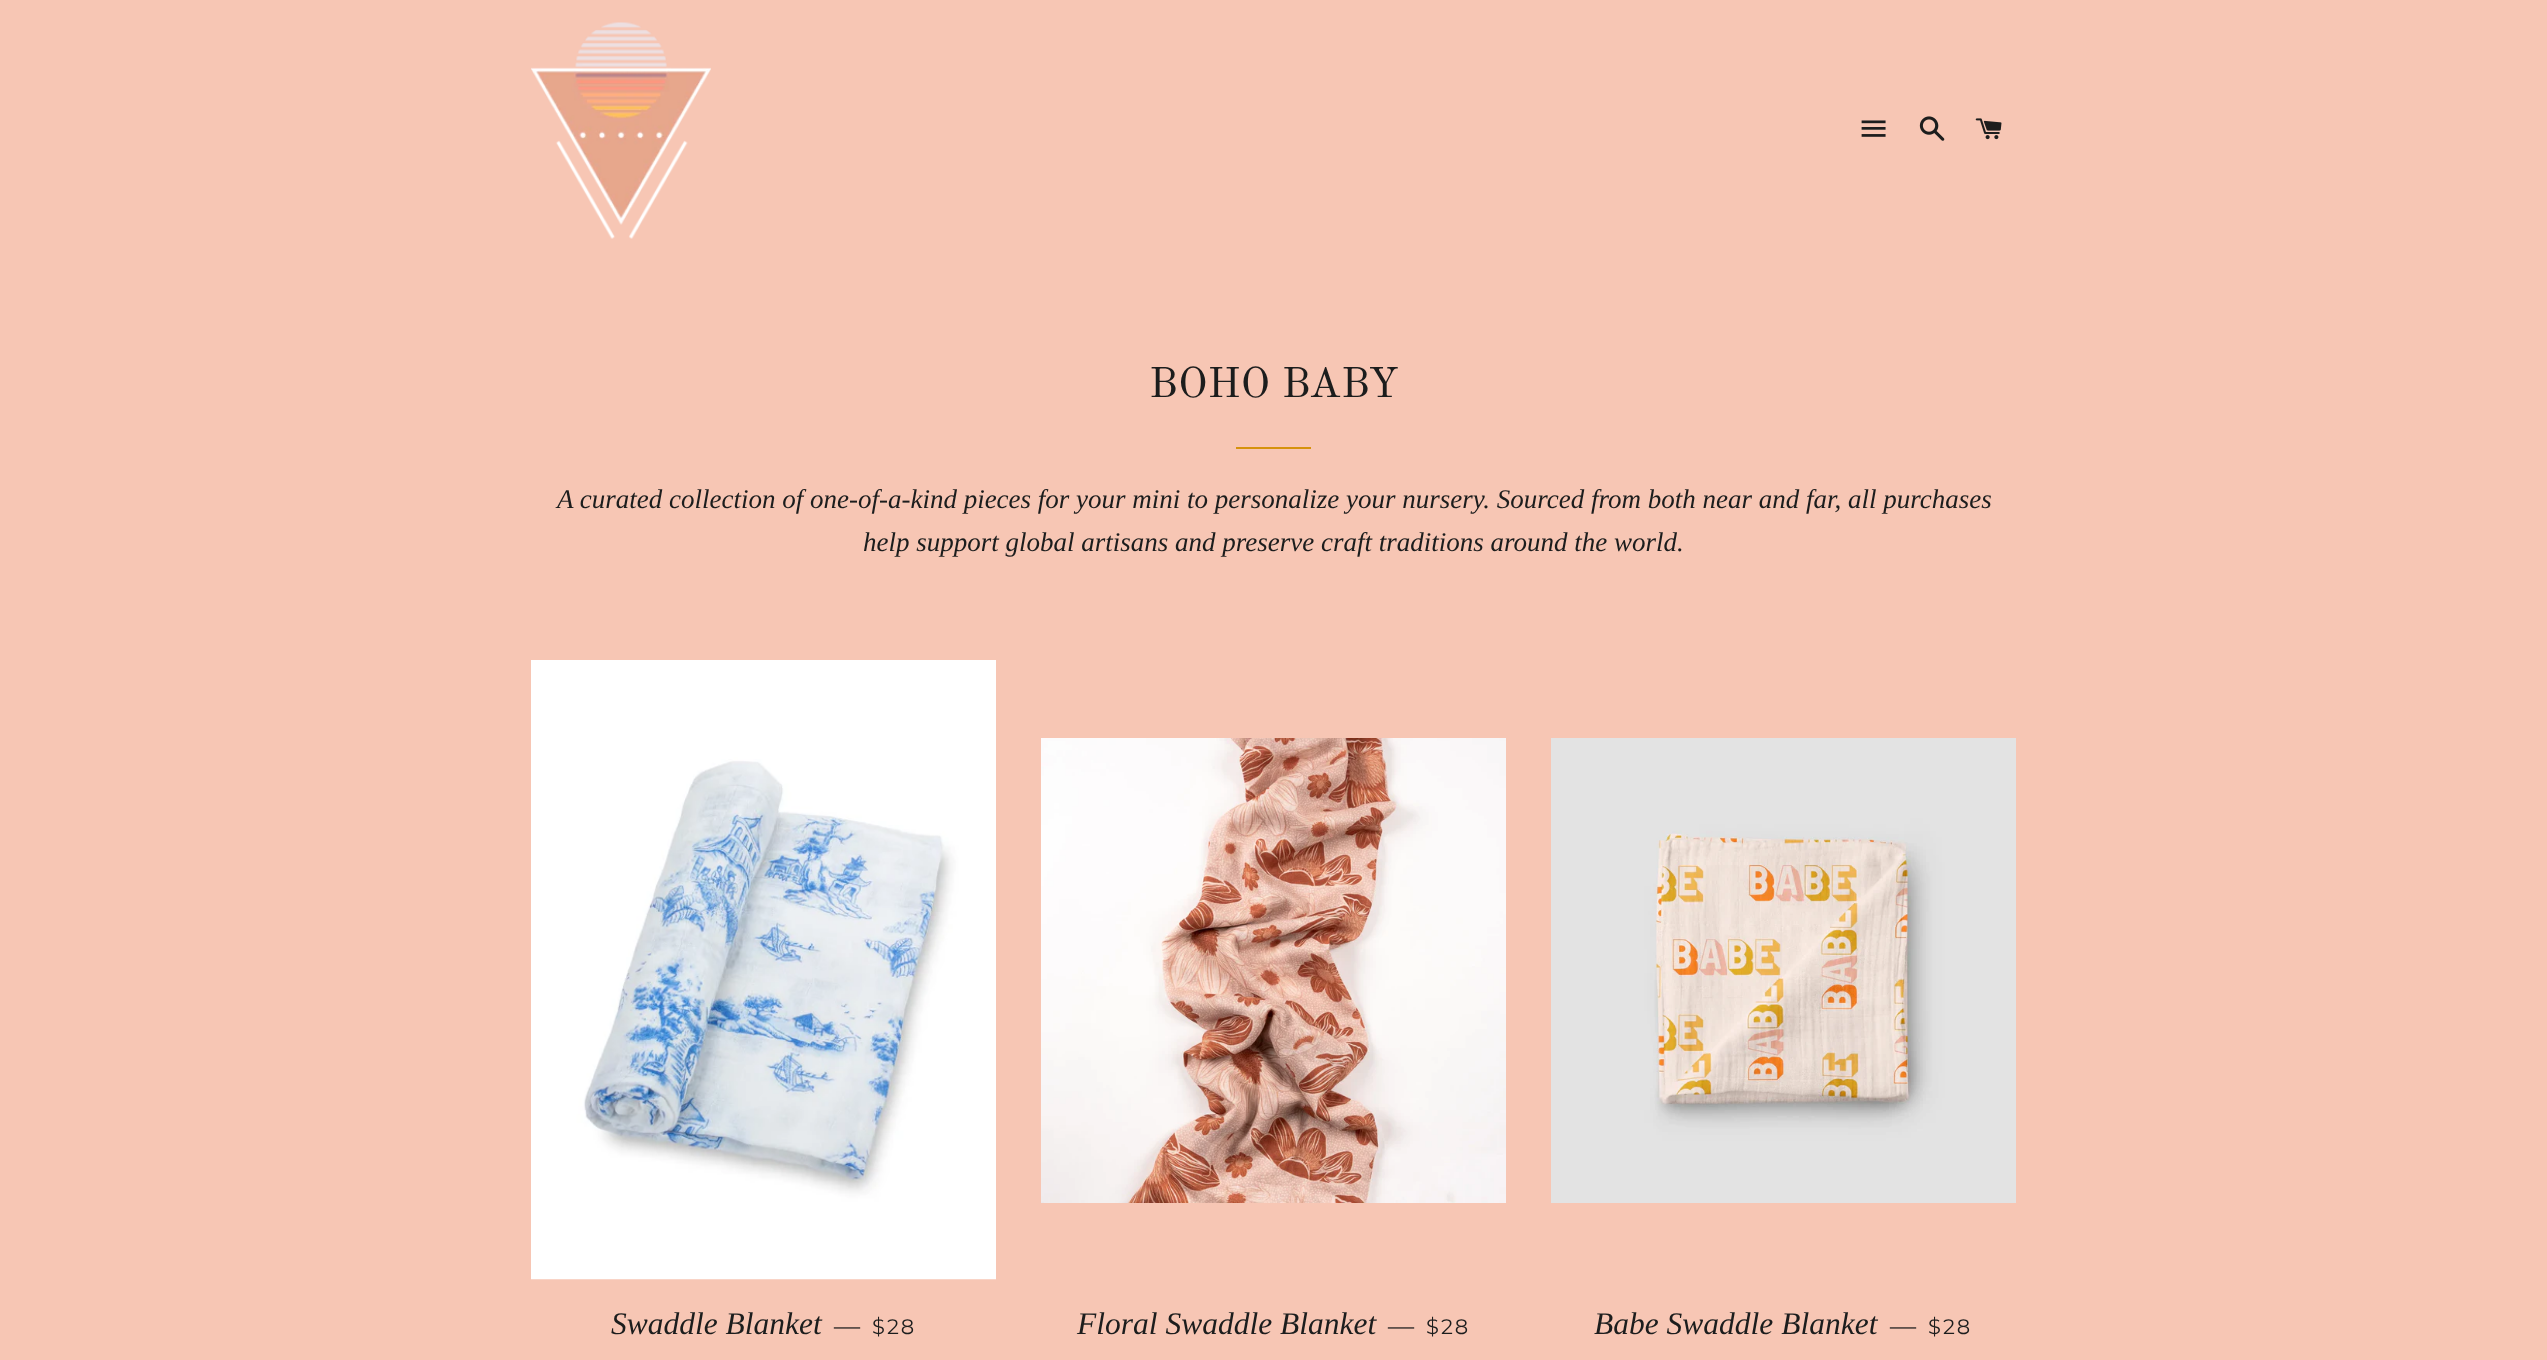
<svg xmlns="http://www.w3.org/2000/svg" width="2547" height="1360">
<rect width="100%" height="100%" fill="#f7c6b4"/>
<image x="531" y="22" width="180" height="217" href="media/1.png"/>
<image x="1861" y="120" width="25" height="17" href="media/2.png"/>
<image x="1919" y="116" width="26" height="25" href="media/3.png"/>
<image x="1975" y="118" width="27" height="22" href="media/4.png"/>
<text x="1149" y="397" style="font-family:Old Standard TT;font-size:42px;fill:#1c1d1d">BOHO BABY</text>
<rect x="1236" y="447" width="75" height="2" fill="#d6920d"/>
<text x="557" y="508" style="font-family:Liberation Serif;font-size:27px;font-style:italic;fill:#1c1d1d">A curated collection of one-of-a-kind pieces for your mini to personalize your nursery. Sourced from both near and far, all purchases</text>
<text x="863" y="551" style="font-family:Liberation Serif;font-size:27px;font-style:italic;fill:#1c1d1d">help support global artisans and preserve craft traditions around the world.</text>
<image x="531" y="660" width="465" height="620" href="media/5.png"/>
<text x="611" y="1334" style="font-family:Liberation Serif;font-size:31.5px;font-style:italic;fill:#1c1d1d">Swaddle Blanket</text>
<text x="834" y="1334" style="font-family:Liberation Serif;font-size:26px;fill:#1c1d1d">—</text>
<text x="872" y="1334" style="font-family:Montserrat;font-size:21px;font-weight:100;letter-spacing:2px;fill:#1c1d1d">$28</text>
<image x="1041" y="738" width="465" height="465" href="media/6.png"/>
<text x="1077" y="1334" style="font-family:Liberation Serif;font-size:31.5px;font-style:italic;fill:#1c1d1d">Floral Swaddle Blanket</text>
<text x="1388" y="1334" style="font-family:Liberation Serif;font-size:26px;fill:#1c1d1d">—</text>
<text x="1426" y="1334" style="font-family:Montserrat;font-size:21px;font-weight:100;letter-spacing:2px;fill:#1c1d1d">$28</text>
<image x="1551" y="738" width="465" height="465" href="media/7.png"/>
<text x="1594" y="1334" style="font-family:Liberation Serif;font-size:31.5px;font-style:italic;fill:#1c1d1d">Babe Swaddle Blanket</text>
<text x="1890" y="1334" style="font-family:Liberation Serif;font-size:26px;fill:#1c1d1d">—</text>
<text x="1928" y="1334" style="font-family:Montserrat;font-size:21px;font-weight:100;letter-spacing:2px;fill:#1c1d1d">$28</text>
</svg>
